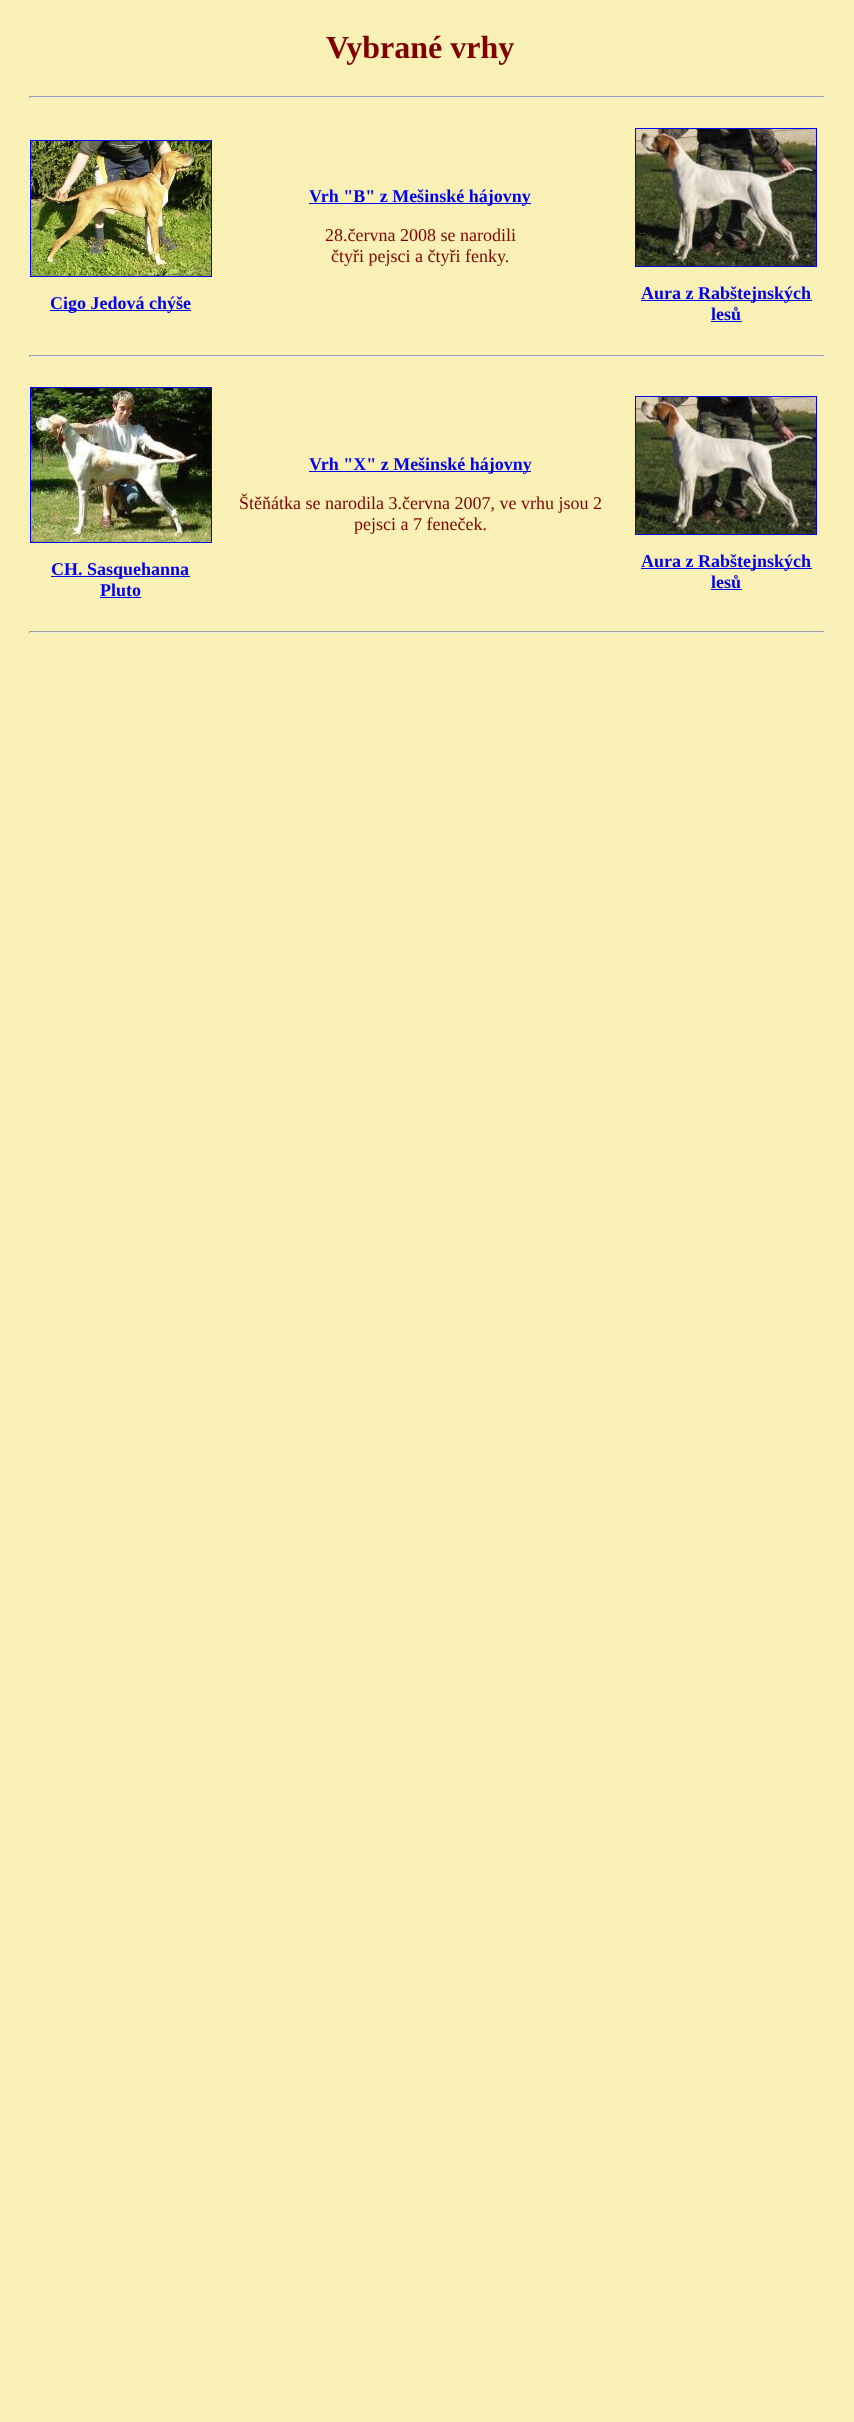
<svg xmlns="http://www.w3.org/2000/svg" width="854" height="2422">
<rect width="100%" height="100%" fill="#f8f0b4"/>
<text x="326" y="58" style="font-family:Liberation Serif;font-size:32px;font-weight:bold;fill:#800000">Vybrané vrhy</text>
<rect x="29" y="96" width="796" height="1" fill="#9f9f9f"/>
<rect x="824" y="96" width="1" height="2" fill="#eee"/>
<rect x="29" y="97" width="796" height="1" fill="#eee"/>
<rect x="29" y="96" width="1" height="2" fill="#9f9f9f"/>
<rect x="309" y="203" width="222" height="1" fill="#00e"/>
<text x="309" y="202" style="font-family:Liberation Serif;font-size:18px;font-weight:bold;fill:#00e">Vrh "B" z Mešinské hájovny</text>
<text x="325" y="241" style="font-family:Liberation Serif;font-size:18px;fill:#800000">28.června 2008 se narodili</text>
<text x="331" y="262" style="font-family:Liberation Serif;font-size:18px;fill:#800000">čtyři pejsci a čtyři fenky.</text>
<rect x="30.5" y="140.5" width="181" height="136" fill="none" stroke="#00e"/>
<image x="31" y="141" width="180" height="135" href="media/1.png"/>
<rect x="50" y="310" width="141" height="1" fill="#00e"/>
<text x="50" y="309" style="font-family:Liberation Serif;font-size:18px;font-weight:bold;fill:#00e">Cigo Jedová chýše</text>
<rect x="635.5" y="128.5" width="181" height="138" fill="none" stroke="#00e"/>
<image x="636" y="129" width="180" height="137" href="media/2.png"/>
<rect x="641" y="300" width="171" height="1" fill="#00e"/>
<text x="641" y="299" style="font-family:Liberation Serif;font-size:18px;font-weight:bold;fill:#00e">Aura z Rabštejnských</text>
<text x="711" y="320" style="font-family:Liberation Serif;font-size:18px;font-weight:bold;fill:#00e">lesů</text>
<rect x="711" y="321" width="31" height="1" fill="#00e"/>
<rect x="29" y="355" width="796" height="1" fill="#9f9f9f"/>
<rect x="824" y="355" width="1" height="2" fill="#eee"/>
<rect x="29" y="356" width="796" height="1" fill="#eee"/>
<rect x="29" y="355" width="1" height="2" fill="#9f9f9f"/>
<rect x="309" y="471" width="222" height="1" fill="#00e"/>
<text x="309" y="470" style="font-family:Liberation Serif;font-size:18px;font-weight:bold;fill:#00e">Vrh "X" z Mešinské hájovny</text>
<text x="239" y="509" style="font-family:Liberation Serif;font-size:18px;fill:#800000">Štěňátka se narodila 3.června 2007, ve vrhu jsou 2</text>
<text x="354" y="530" style="font-family:Liberation Serif;font-size:18px;fill:#800000">pejsci a 7 feneček.</text>
<rect x="30.5" y="387.5" width="181" height="155" fill="none" stroke="#00e"/>
<image x="31" y="388" width="180" height="154" href="media/3.png"/>
<rect x="51" y="576" width="139" height="1" fill="#00e"/>
<text x="51" y="575" style="font-family:Liberation Serif;font-size:18px;font-weight:bold;fill:#00e">CH. Sasquehanna</text>
<text x="100" y="596" style="font-family:Liberation Serif;font-size:18px;font-weight:bold;fill:#00e">Pluto</text>
<rect x="100" y="597" width="41" height="1" fill="#00e"/>
<rect x="635.5" y="396.5" width="181" height="138" fill="none" stroke="#00e"/>
<image x="636" y="397" width="180" height="137" href="media/2.png"/>
<rect x="641" y="568" width="171" height="1" fill="#00e"/>
<text x="641" y="567" style="font-family:Liberation Serif;font-size:18px;font-weight:bold;fill:#00e">Aura z Rabštejnských</text>
<text x="711" y="588" style="font-family:Liberation Serif;font-size:18px;font-weight:bold;fill:#00e">lesů</text>
<rect x="711" y="589" width="31" height="1" fill="#00e"/>
<rect x="29" y="631" width="796" height="1" fill="#9f9f9f"/>
<rect x="824" y="631" width="1" height="2" fill="#eee"/>
<rect x="29" y="632" width="796" height="1" fill="#eee"/>
<rect x="29" y="631" width="1" height="2" fill="#9f9f9f"/>
</svg>
